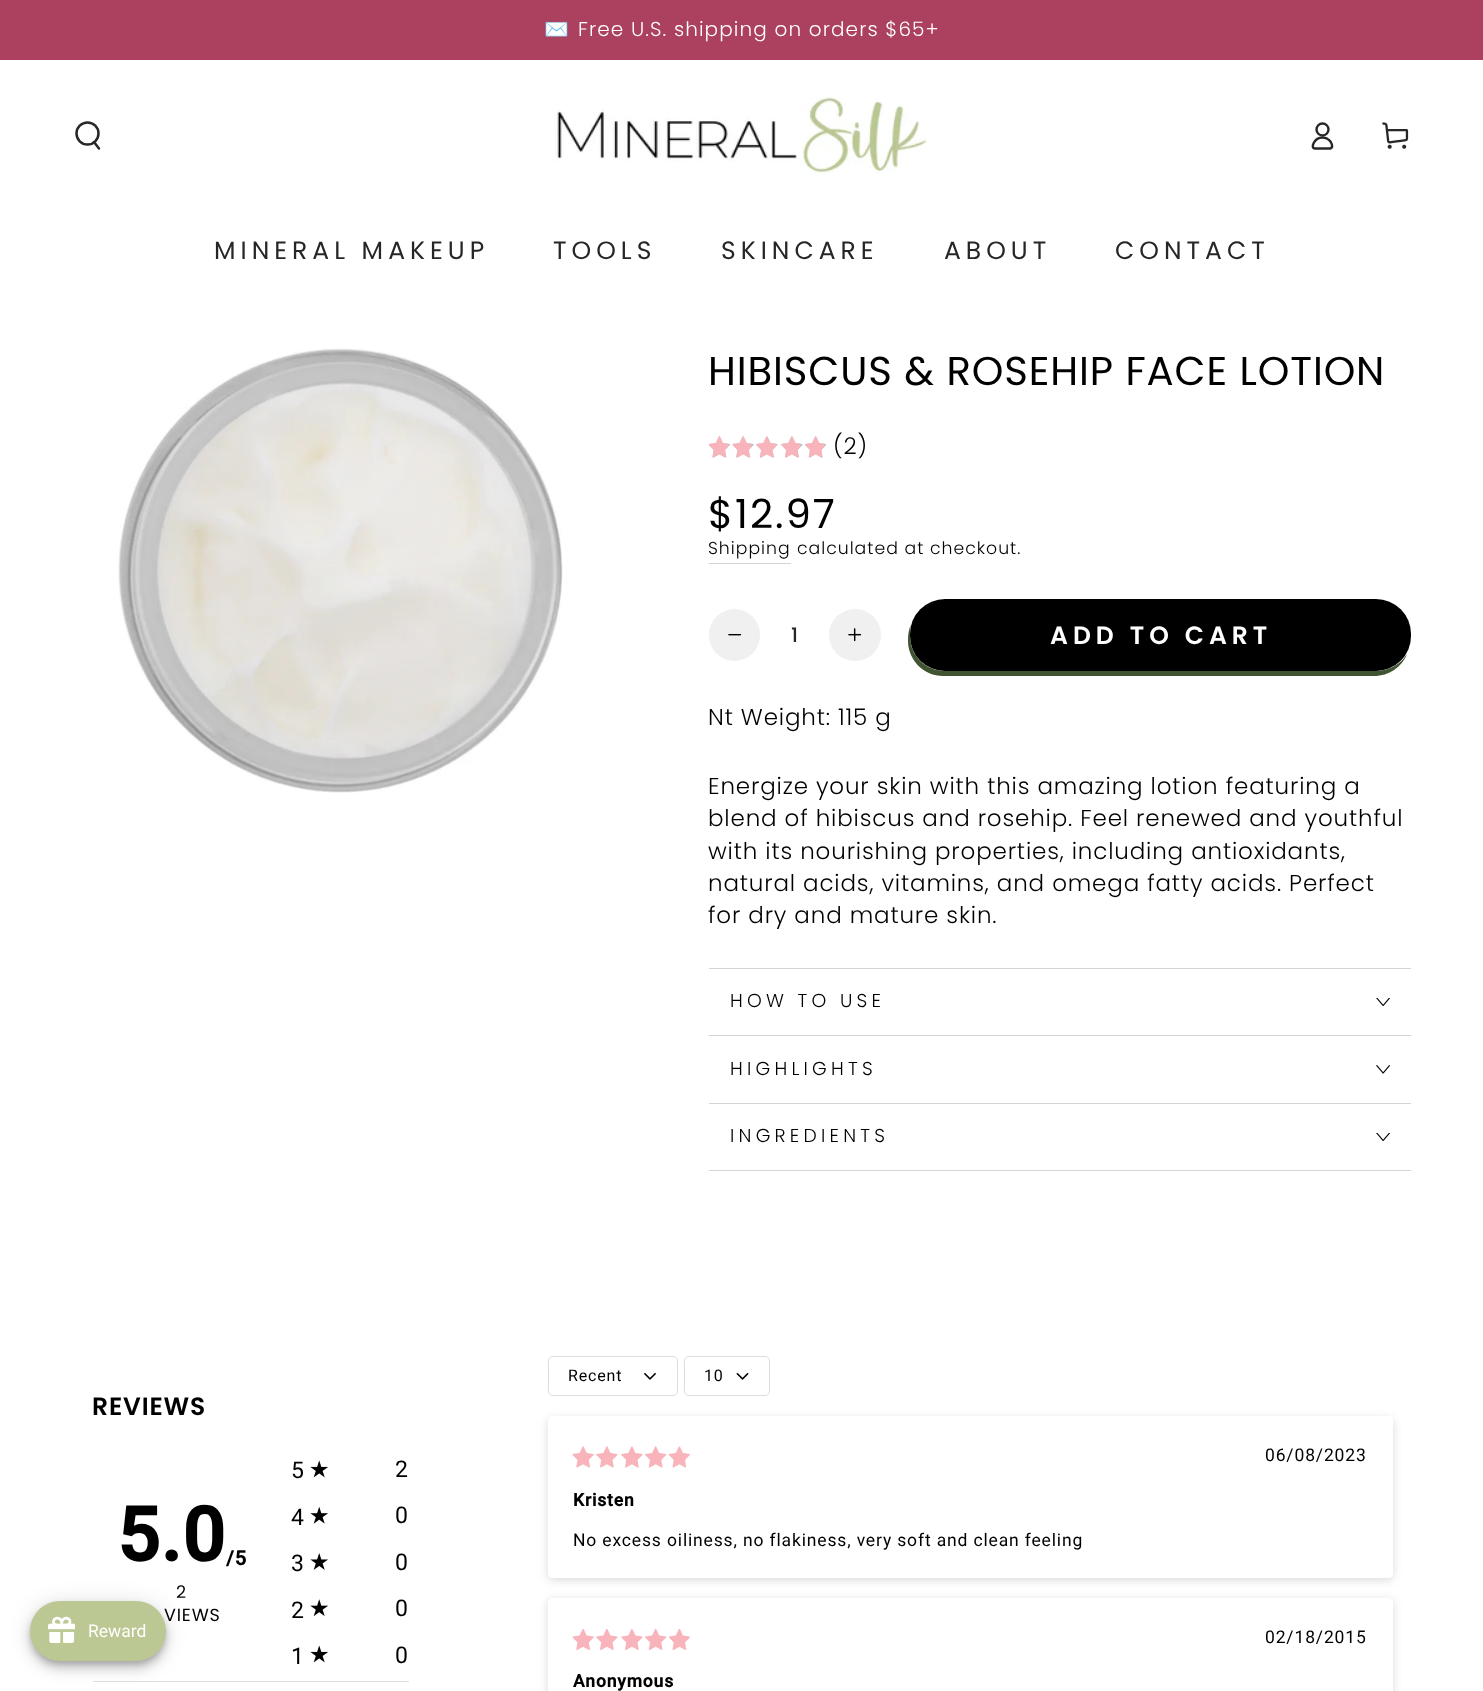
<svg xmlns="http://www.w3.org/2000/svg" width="1483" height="1691">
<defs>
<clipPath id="clip1"><path d="M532 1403h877v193h-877zm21 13h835c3 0 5 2 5 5v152c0 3-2 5-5 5h-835c-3 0-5-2-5-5v-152c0-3 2-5 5-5z" clip-rule="evenodd"/></clipPath>
<clipPath id="clip2"><path d="M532 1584h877v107h-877zm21 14h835c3 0 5 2 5 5v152c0 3-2 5-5 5h-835c-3 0-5-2-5-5v-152c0-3 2-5 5-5z" clip-rule="evenodd"/></clipPath>
</defs>
<rect width="100%" height="100%" fill="#fff"/>
<rect width="1483" height="60" fill="#ab415f"/>
<text x="544" y="36" style="font-family:Noto Color Emoji;font-size:20px;letter-spacing:1.1px;fill:#fff">✉️</text>
<text x="578" y="36" style="font-family:Poppins;font-size:20px;font-weight:300;letter-spacing:1.1px;fill:#fff">Free U.S. shipping on orders $65+</text>
<circle cx="87.5" cy="133.5" r="11" fill="none" stroke="#282828" stroke-width="2.5"/>
<path d="M94 142l5 6.5" fill="none" stroke="#282828" stroke-width="2.5" stroke-linecap="round"/>
<image x="555" y="97" width="372" height="77" href="media/1.png"/>
<path d="M1322.5 137.5c-8.5 0-12.5 11-7.5 11h15.5c3.5-1.5 .5-7-1.5-8.5c-1.5-1.5-4-2.5-6.5-2.5z" fill="none" stroke="#282828" stroke-width="2.4"/>
<circle cx="1322.5" cy="129.5" r="6" fill="none" stroke="#282828" stroke-width="2.4"/>
<image x="1382" y="122" width="27" height="27" href="media/2.png"/>
<text x="214" y="259" style="font-family:Poppins;font-size:25px;letter-spacing:5px;fill:#262626">MINERAL MAKEUP</text>
<text x="553" y="259" style="font-family:Poppins;font-size:25px;letter-spacing:5px;fill:#262626">TOOLS</text>
<text x="721" y="259" style="font-family:Poppins;font-size:25px;letter-spacing:5px;fill:#262626">SKINCARE</text>
<text x="944" y="259" style="font-family:Poppins;font-size:25px;letter-spacing:5px;fill:#262626">ABOUT</text>
<text x="1115" y="259" style="font-family:Poppins;font-size:25px;letter-spacing:5px;fill:#262626">CONTACT</text>
<image x="118" y="348" width="445" height="445" href="media/3.png"/>
<text x="708" y="385" style="font-family:Poppins;font-size:40.25px;letter-spacing:0.85px;fill:#000">HIBISCUS &amp; ROSEHIP FACE LOTION</text>
<image x="708" y="436" width="22" height="22" href="media/4.png"/>
<image x="709" y="436" width="19" height="22" href="media/5.png"/>
<image x="732" y="436" width="22" height="22" href="media/6.png"/>
<image x="733" y="436" width="18" height="22" href="media/7.png"/>
<image x="756" y="436" width="22" height="22" href="media/8.png"/>
<image x="756" y="436" width="20" height="22" href="media/9.png"/>
<image x="781" y="436" width="22" height="22" href="media/8.png"/>
<image x="781" y="436" width="19" height="22" href="media/10.png"/>
<image x="805" y="436" width="22" height="22" href="media/11.png"/>
<image x="805" y="436" width="19" height="22" href="media/12.png"/>
<text x="833" y="454" style="font-family:Poppins;font-size:23px;font-weight:300;letter-spacing:0.85px;fill:#000">(2)</text>
<text x="708" y="528" style="font-family:Poppins;font-size:40.25px;letter-spacing:2px;fill:#000">$12.97</text>
<text x="708" y="554" style="font-family:Poppins;font-size:17.25px;font-weight:300;letter-spacing:1px;fill:#000">Shipping</text>
<rect x="709" y="563" width="82" height="1" fill="#d2d5d9"/>
<text x="797" y="554" style="font-family:Poppins;font-size:17.25px;font-weight:300;letter-spacing:1px;fill:#000">calculated at checkout.</text>
<rect x="709" y="609" width="51" height="52" rx="25.5" fill="#f0f0f0"/>
<image x="728" y="634" width="13" height="2" href="media/13.png"/>
<text x="791" y="642" style="font-family:Poppins;font-size:20px;font-weight:500;fill:#262626">1</text>
<circle cx="855" cy="635" r="26" fill="#f0f0f0"/>
<image x="848" y="628" width="14" height="14" href="media/14.png"/>
<path d="M911 624c-2 5-3 10-3 15v2c0 19 16 35 35 35h431c15 0 28-9 33-22c-6 10-18 17-31 17h-431c-19 0-35-15-35-35v-2c0-4 0-7 1-10z" fill="#405432"/>
<rect x="910" y="599" width="501" height="72" rx="35" fill="#000"/>
<text x="1050" y="644" style="font-family:Poppins;font-size:25px;font-weight:600;letter-spacing:5px;fill:#fff">ADD TO CART</text>
<text x="708" y="725" style="font-family:Poppins;font-size:23px;font-weight:300;letter-spacing:0.85px;fill:#000">Nt Weight: 115 g</text>
<text x="708" y="794" style="font-family:Poppins;font-size:23px;font-weight:300;letter-spacing:0.85px;fill:#000">Energize your skin with this amazing lotion featuring a</text>
<text x="708" y="826" style="font-family:Poppins;font-size:23px;font-weight:300;letter-spacing:0.85px;fill:#000">blend of hibiscus and rosehip. Feel renewed and youthful</text>
<text x="708" y="859" style="font-family:Poppins;font-size:23px;font-weight:300;letter-spacing:0.85px;fill:#000">with its nourishing properties, including antioxidants,</text>
<text x="708" y="891" style="font-family:Poppins;font-size:23px;font-weight:300;letter-spacing:0.85px;fill:#000">natural acids, vitamins, and omega fatty acids. Perfect</text>
<text x="708" y="923" style="font-family:Poppins;font-size:23px;font-weight:300;letter-spacing:0.85px;fill:#000">for dry and mature skin.</text>
<rect x="709" y="968" width="702" height="1" fill="#d2d5d9"/>
<rect x="709" y="1035" width="702" height="1" fill="#d2d5d9"/>
<text x="730" y="1007" style="font-family:Poppins;font-size:18.75px;font-weight:300;letter-spacing:4.25px;fill:#000">HOW TO USE</text>
<image x="1376" y="998" width="14" height="8" href="media/15.png"/>
<rect x="709" y="1103" width="702" height="1" fill="#d2d5d9"/>
<text x="730" y="1075" style="font-family:Poppins;font-size:18.75px;font-weight:300;letter-spacing:4.25px;fill:#000">HIGHLIGHTS</text>
<image x="1376" y="1065" width="14" height="9" href="media/16.png"/>
<rect x="709" y="1170" width="702" height="1" fill="#d2d5d9"/>
<text x="730" y="1142" style="font-family:Poppins;font-size:18.75px;font-weight:300;letter-spacing:4.25px;fill:#000">INGREDIENTS</text>
<image x="1376" y="1133" width="14" height="8" href="media/15.png"/>
<rect x="93" y="1681" width="316" height="1" fill="#dfdfdf"/>
<text x="92" y="1415" style="font-family:Poppins;font-size:25px;font-weight:600;letter-spacing:0.85px;fill:#000">REVIEWS</text>
<text x="117" y="1561" style="font-family:Roboto;font-size:75px;font-weight:bold;letter-spacing:0.85px;fill:#000">5.0</text>
<text x="226" y="1565" style="font-family:Roboto;font-size:20px;font-weight:bold;letter-spacing:0.85px;fill:#000">/5</text>
<text x="176" y="1598" style="font-family:Poppins;font-size:17.5px;letter-spacing:0.85px;fill:#000">2</text>
<text x="164" y="1621" style="font-family:Poppins;font-size:17.5px;letter-spacing:0.85px;fill:#000">VIEWS</text>
<text x="291" y="1478" style="font-family:Roboto;font-size:23px;letter-spacing:0.85px;fill:#000">5</text>
<image x="310" y="1460" width="18" height="18" href="media/17.png"/>
<text x="395" y="1477" style="font-family:Roboto;font-size:23px;letter-spacing:0.85px;fill:#000">2</text>
<text x="291" y="1525" style="font-family:Roboto;font-size:23px;letter-spacing:0.85px;fill:#000">4</text>
<image x="310" y="1506" width="18" height="18" href="media/18.png"/>
<text x="395" y="1523" style="font-family:Roboto;font-size:23px;letter-spacing:0.85px;fill:#000">0</text>
<text x="291" y="1571" style="font-family:Roboto;font-size:23px;letter-spacing:0.85px;fill:#000">3</text>
<image x="310" y="1553" width="18" height="17" href="media/19.png"/>
<text x="395" y="1570" style="font-family:Roboto;font-size:23px;letter-spacing:0.85px;fill:#000">0</text>
<text x="291" y="1618" style="font-family:Roboto;font-size:23px;letter-spacing:0.85px;fill:#000">2</text>
<image x="310" y="1599" width="18" height="17" href="media/20.png"/>
<text x="395" y="1616" style="font-family:Roboto;font-size:23px;letter-spacing:0.85px;fill:#000">0</text>
<text x="291" y="1664" style="font-family:Roboto;font-size:23px;letter-spacing:0.85px;fill:#000">1</text>
<image x="310" y="1645" width="18" height="18" href="media/17.png"/>
<text x="395" y="1663" style="font-family:Roboto;font-size:23px;letter-spacing:0.85px;fill:#000">0</text>
<rect x="548.5" y="1356.5" width="129" height="39" rx="4.5" fill="none" stroke="#ddd"/>
<text x="568" y="1381" style="font-family:Roboto;font-size:16px;letter-spacing:0.85px;fill:#000">Recent</text>
<image x="644" y="1373" width="12" height="7" href="media/21.png"/>
<rect x="684.5" y="1356.5" width="85" height="39" rx="4.5" fill="none" stroke="#ddd"/>
<text x="704" y="1381" style="font-family:Roboto;font-size:16px;letter-spacing:0.85px;fill:#000">10</text>
<image x="736" y="1373" width="13" height="7" href="media/22.png"/>
<g clip-path="url(#clip1)">
<rect x="548" y="1419" width="845" height="161" rx="5" fill="#00000026" filter="blur(5px)"/>
</g>
<image x="572" y="1446" width="22" height="22" href="media/23.png"/>
<image x="596" y="1446" width="22" height="22" href="media/24.png"/>
<image x="621" y="1446" width="22" height="22" href="media/24.png"/>
<image x="645" y="1446" width="22" height="22" href="media/25.png"/>
<image x="668" y="1446" width="22" height="22" href="media/26.png"/>
<text x="1265" y="1461" style="font-family:Roboto;font-size:17.5px;letter-spacing:0.85px;fill:#000">06/08/2023</text>
<text x="573" y="1506" style="font-family:Roboto;font-size:17.5px;font-weight:bold;letter-spacing:0.85px;fill:#000">Kristen</text>
<text x="573" y="1546" style="font-family:Roboto;font-size:17.5px;letter-spacing:0.85px;fill:#000">No excess oiliness, no flakiness, very soft and clean feeling</text>
<g clip-path="url(#clip2)">
<rect x="548" y="1600" width="845" height="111" rx="5" fill="#00000026" filter="blur(5px)"/>
</g>
<image x="572" y="1629" width="22" height="21" href="media/27.png"/>
<image x="596" y="1629" width="22" height="21" href="media/28.png"/>
<image x="621" y="1629" width="22" height="21" href="media/28.png"/>
<image x="645" y="1628" width="22" height="22" href="media/29.png"/>
<image x="668" y="1628" width="22" height="22" href="media/30.png"/>
<text x="1265" y="1643" style="font-family:Roboto;font-size:17.5px;letter-spacing:0.85px;fill:#000">02/18/2015</text>
<text x="573" y="1687" style="font-family:Roboto;font-size:17.5px;font-weight:bold;letter-spacing:0.85px;fill:#000">Anonymous</text>
<rect x="30" y="1603" width="136" height="60" rx="30" fill="#0000001f" filter="blur(11px)"/>
<rect x="30" y="1609" width="136" height="60" rx="30" fill="#00000024" filter="blur(6px)"/>
<rect x="31" y="1606" width="134" height="58" rx="29" fill="#00000033" filter="blur(3px)"/>
<rect x="30" y="1601" width="136" height="60" rx="30" fill="#bbc893"/>
<image x="48" y="1616" width="27" height="27" href="media/31.png"/>
<text x="88" y="1637" style="font-family:Roboto;font-size:17.5px;fill:#fff">Reward</text>
</svg>
